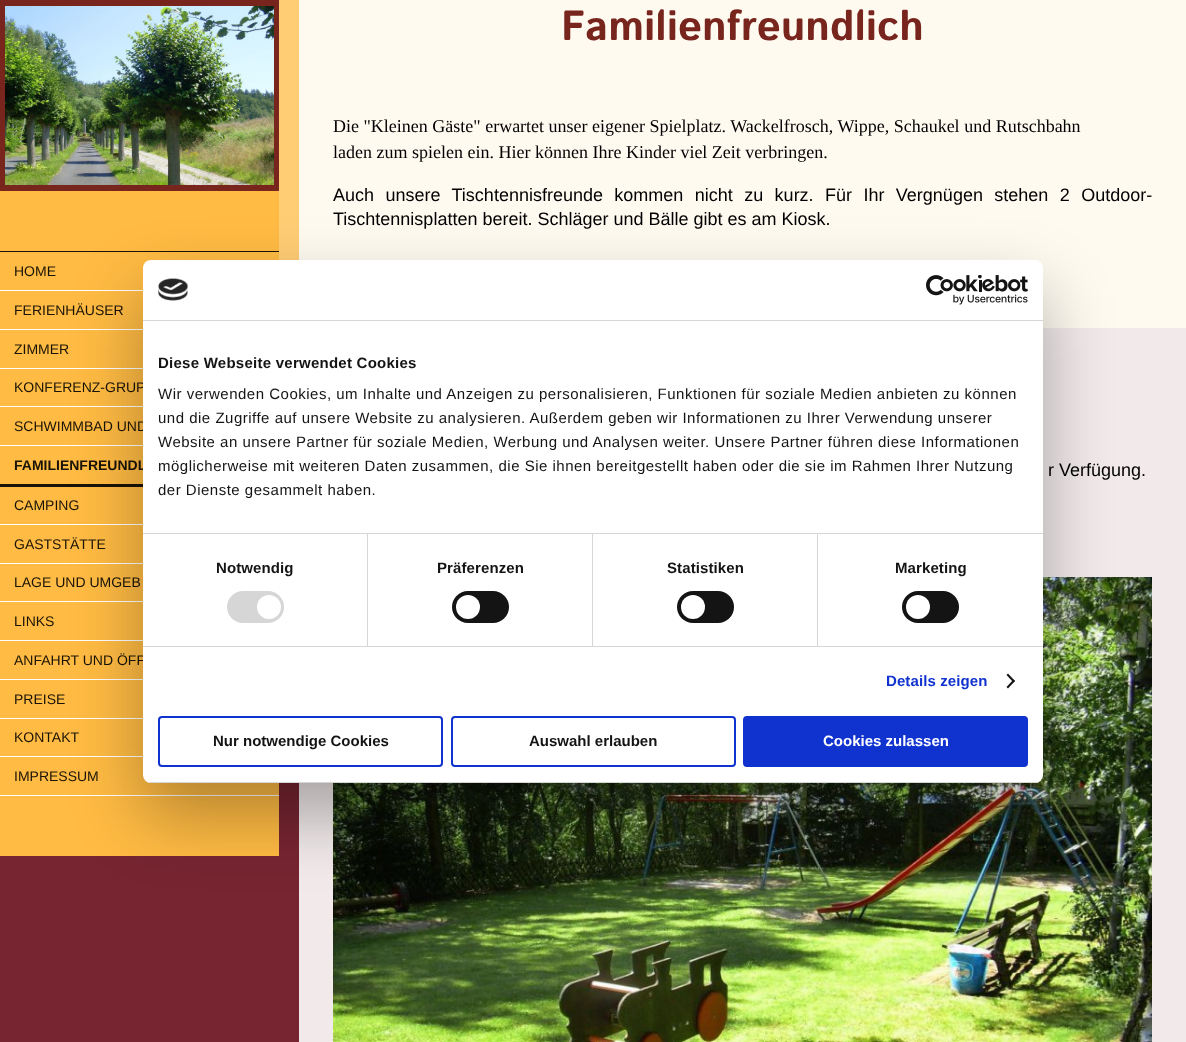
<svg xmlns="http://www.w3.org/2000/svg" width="1186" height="1042">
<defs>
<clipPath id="clip1"><rect x="143" y="260" width="900" height="523" rx="8"/></clipPath>
</defs>
<rect width="100%" height="100%" fill="#762531"/>
<rect x="299" y="328" width="887" height="714" fill="#f1e9ea"/>
<rect x="279" width="20" height="260" fill="#ffcd74"/>
<rect x="299" width="887" height="328" fill="#fffaf0"/>
<rect y="191" width="279" height="665" fill="#ffbb43"/>
<rect width="279" height="191" fill="#78251e"/>
<image x="5" y="6" width="269" height="179" href="media/1.png"/>
<rect y="251" width="279" height="1" fill="#1a1307"/>
<rect y="290" width="143" height="1" fill="#fff"/>
<text x="14" y="276" style="font-family:Liberation Sans;font-size:14px;fill:#1a1307">HOME</text>
<rect y="329" width="143" height="1" fill="#fff"/>
<text x="14" y="315" style="font-family:Liberation Sans;font-size:14px;fill:#1a1307">FERIENHÄUSER</text>
<rect y="368" width="143" height="1" fill="#fff"/>
<text x="14" y="354" style="font-family:Liberation Sans;font-size:14px;fill:#1a1307">ZIMMER</text>
<rect y="406" width="143" height="1" fill="#fff"/>
<text x="14" y="392" style="font-family:Liberation Sans;font-size:14px;fill:#1a1307">KONFERENZ-GRUP</text>
<rect y="445" width="143" height="1" fill="#fff"/>
<text x="14" y="431" style="font-family:Liberation Sans;font-size:14px;fill:#1a1307">SCHWIMMBAD UND</text>
<rect y="484" width="143" height="3" fill="#1a1307"/>
<text x="14" y="470" style="font-family:Liberation Sans;font-size:14px;font-weight:bold;fill:#1a1307">FAMILIENFREUNDL</text>
<rect y="524" width="143" height="1" fill="#fff"/>
<text x="14" y="510" style="font-family:Liberation Sans;font-size:14px;fill:#1a1307">CAMPING</text>
<rect y="563" width="143" height="1" fill="#fff"/>
<text x="14" y="549" style="font-family:Liberation Sans;font-size:14px;fill:#1a1307">GASTSTÄTTE</text>
<rect y="601" width="143" height="1" fill="#fff"/>
<text x="14" y="587" style="font-family:Liberation Sans;font-size:14px;fill:#1a1307">LAGE UND UMGEB</text>
<rect y="640" width="143" height="1" fill="#fff"/>
<text x="14" y="626" style="font-family:Liberation Sans;font-size:14px;fill:#1a1307">LINKS</text>
<rect y="679" width="143" height="1" fill="#fff"/>
<text x="14" y="665" style="font-family:Liberation Sans;font-size:14px;fill:#1a1307">ANFAHRT UND ÖFF</text>
<rect y="718" width="143" height="1" fill="#fff"/>
<text x="14" y="704" style="font-family:Liberation Sans;font-size:14px;fill:#1a1307">PREISE</text>
<rect y="756" width="143" height="1" fill="#fff"/>
<text x="14" y="742" style="font-family:Liberation Sans;font-size:14px;fill:#1a1307">KONTAKT</text>
<rect y="795" width="279" height="1" fill="#fff"/>
<text x="14" y="781" style="font-family:Liberation Sans;font-size:14px;fill:#1a1307">IMPRESSUM</text>
<text x="561" y="40" style="font-family:Istok Web;font-size:42px;font-weight:bold;fill:#78251e">Familienfreundlich</text>
<text x="333" y="132" style="font-family:Liberation Serif;font-size:18px;fill:#000">Die "Kleinen Gäste" erwartet unser eigener Spielplatz. Wackelfrosch, Wippe, Schaukel und Rutschbahn</text>
<text x="333" y="158" style="font-family:Liberation Serif;font-size:18px;fill:#000">laden zum spielen ein. Hier können Ihre Kinder viel Zeit verbringen.</text>
<text x="333" y="201" word-spacing="6.4" style="font-family:Liberation Sans;font-size:18px;fill:#000">Auch unsere Tischtennisfreunde kommen nicht zu kurz. Für Ihr Vergnügen stehen 2 Outdoor-</text>
<text x="333" y="225" style="font-family:Liberation Sans;font-size:18px;fill:#000">Tischtennisplatten bereit. Schläger und Bälle gibt es am Kiosk.</text>
<text x="1048" y="476" style="font-family:Liberation Sans;font-size:18px;fill:#000">r Verfügung.</text>
<image x="333" y="577" width="819" height="465" href="media/2.png"/>
<rect x="143" y="292" width="900" height="523" rx="8" fill="#0000004d" filter="blur(34px)"/>
<rect x="143" y="260" width="900" height="523" rx="8" fill="#fff"/>
<rect x="143" y="320" width="900" height="1" fill="#d6d6d6"/>
<image x="158" y="278" width="30" height="23" href="media/3.png"/>
<image x="926" y="275" width="102" height="30" href="media/4.png"/>
<rect x="143" y="533" width="900" height="1" fill="#d6d6d6"/>
<text x="158" y="368" style="font-family:Liberation Sans;font-size:15px;font-weight:bold;letter-spacing:0.25px;fill:#141414">Diese Webseite verwendet Cookies</text>
<text x="158" y="399" style="font-family:Liberation Sans;font-size:15px;letter-spacing:0.5px;fill:#141414">Wir verwenden Cookies, um Inhalte und Anzeigen zu personalisieren, Funktionen für soziale Medien anbieten zu können</text>
<text x="158" y="423" style="font-family:Liberation Sans;font-size:15px;letter-spacing:0.5px;fill:#141414">und die Zugriffe auf unsere Website zu analysieren. Außerdem geben wir Informationen zu Ihrer Verwendung unserer</text>
<text x="158" y="447" style="font-family:Liberation Sans;font-size:15px;letter-spacing:0.5px;fill:#141414">Website an unsere Partner für soziale Medien, Werbung und Analysen weiter. Unsere Partner führen diese Informationen</text>
<text x="158" y="471" style="font-family:Liberation Sans;font-size:15px;letter-spacing:0.5px;fill:#141414">möglicherweise mit weiteren Daten zusammen, die Sie ihnen bereitgestellt haben oder die sie im Rahmen Ihrer Nutzung</text>
<text x="158" y="495" style="font-family:Liberation Sans;font-size:15px;letter-spacing:0.5px;fill:#141414">der Dienste gesammelt haben.</text>
<rect x="143" y="646" width="900" height="1" fill="#d6d6d6"/>
<rect x="367" y="534" width="1" height="112" fill="#d6d6d6"/>
<text x="216" y="573" style="font-family:Liberation Sans;font-size:15px;font-weight:bold;letter-spacing:0.1px;fill:#141414">Notwendig</text>
<rect x="227" y="591" width="57" height="32" rx="16" fill="#d6d6d6"/>
<circle cx="269" cy="607" r="12" fill="#fff"/>
<rect x="592" y="534" width="1" height="112" fill="#d6d6d6"/>
<text x="437" y="573" style="font-family:Liberation Sans;font-size:15px;font-weight:bold;letter-spacing:0.1px;fill:#141414">Präferenzen</text>
<rect x="452" y="591" width="57" height="32" rx="16" fill="#141414"/>
<circle cx="468" cy="607" r="12" fill="#fff"/>
<rect x="817" y="534" width="1" height="112" fill="#d6d6d6"/>
<text x="667" y="573" style="font-family:Liberation Sans;font-size:15px;font-weight:bold;letter-spacing:0.1px;fill:#141414">Statistiken</text>
<rect x="677" y="591" width="57" height="32" rx="16" fill="#141414"/>
<circle cx="693" cy="607" r="12" fill="#fff"/>
<text x="895" y="573" style="font-family:Liberation Sans;font-size:15px;font-weight:bold;letter-spacing:0.1px;fill:#141414">Marketing</text>
<rect x="902" y="591" width="57" height="32" rx="16" fill="#141414"/>
<circle cx="918" cy="607" r="12" fill="#fff"/>
<text x="886" y="686" style="font-family:Liberation Sans;font-size:15px;font-weight:bold;letter-spacing:0.1px;fill:#1032cf">Details zeigen</text>
<path d="M1008 673.5l7 7.5l-1.5 1.5l-7-7.5z" fill="#141414"/>
<path d="M1013.5 679.5l1.5 1.5l-7 7.5l-1.5-1.5z" fill="#141414"/>
<g clip-path="url(#clip1)">
<rect x="143" y="782" width="900" height="1" fill="#d6d6d6"/>
</g>
<rect x="159" y="717" width="283" height="49" rx="3" fill="none" stroke="#1032cf" stroke-width="2"/>
<text x="213" y="746" style="font-family:Liberation Sans;font-size:15px;font-weight:bold;fill:#141414">Nur notwendige Cookies</text>
<rect x="452" y="717" width="283" height="49" rx="3" fill="none" stroke="#1032cf" stroke-width="2"/>
<text x="529" y="746" style="font-family:Liberation Sans;font-size:15px;font-weight:bold;fill:#141414">Auswahl erlauben</text>
<rect x="744" y="717" width="283" height="49" rx="3" fill="#1032cf" stroke="#1032cf" stroke-width="2"/>
<text x="823" y="746" style="font-family:Liberation Sans;font-size:15px;font-weight:bold;fill:#fff">Cookies zulassen</text>
</svg>
